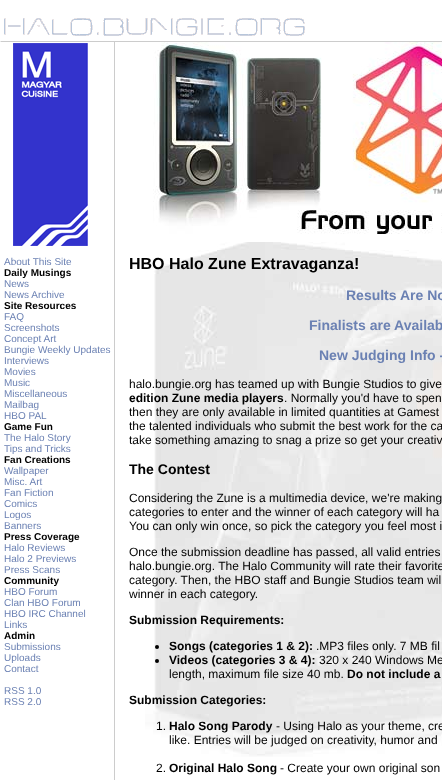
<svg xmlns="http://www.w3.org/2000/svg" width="442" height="780">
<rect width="100%" height="100%" fill="#fff"/>
<image x="0" y="18" width="442" height="24" href="media/1.png"/>
<image x="13" y="43" width="75" height="203" href="media/2.png"/>
<text x="4" y="265" style="font-family:Liberation Sans;font-size:10px;fill:#6b81b3">About This Site</text>
<text x="4" y="276" style="font-family:Liberation Sans;font-size:10px;font-weight:bold;fill:#000">Daily Musings</text>
<text x="4" y="287" style="font-family:Liberation Sans;font-size:10px;fill:#6b81b3">News</text>
<text x="4" y="298" style="font-family:Liberation Sans;font-size:10px;fill:#6b81b3">News Archive</text>
<text x="4" y="309" style="font-family:Liberation Sans;font-size:10px;font-weight:bold;fill:#000">Site Resources</text>
<text x="4" y="320" style="font-family:Liberation Sans;font-size:10px;fill:#6b81b3">FAQ</text>
<text x="4" y="331" style="font-family:Liberation Sans;font-size:10px;fill:#6b81b3">Screenshots</text>
<text x="4" y="342" style="font-family:Liberation Sans;font-size:10px;fill:#6b81b3">Concept Art</text>
<text x="4" y="353" style="font-family:Liberation Sans;font-size:10px;fill:#6b81b3">Bungie Weekly Updates</text>
<text x="4" y="364" style="font-family:Liberation Sans;font-size:10px;fill:#6b81b3">Interviews</text>
<text x="4" y="375" style="font-family:Liberation Sans;font-size:10px;fill:#6b81b3">Movies</text>
<text x="4" y="386" style="font-family:Liberation Sans;font-size:10px;fill:#6b81b3">Music</text>
<text x="4" y="397" style="font-family:Liberation Sans;font-size:10px;fill:#6b81b3">Miscellaneous</text>
<text x="4" y="408" style="font-family:Liberation Sans;font-size:10px;fill:#6b81b3">Mailbag</text>
<text x="4" y="419" style="font-family:Liberation Sans;font-size:10px;fill:#6b81b3">HBO PAL</text>
<text x="4" y="430" style="font-family:Liberation Sans;font-size:10px;font-weight:bold;fill:#000">Game Fun</text>
<text x="4" y="441" style="font-family:Liberation Sans;font-size:10px;fill:#6b81b3">The Halo Story</text>
<text x="4" y="452" style="font-family:Liberation Sans;font-size:10px;fill:#6b81b3">Tips and Tricks</text>
<text x="4" y="463" style="font-family:Liberation Sans;font-size:10px;font-weight:bold;fill:#000">Fan Creations</text>
<text x="4" y="474" style="font-family:Liberation Sans;font-size:10px;fill:#6b81b3">Wallpaper</text>
<text x="4" y="485" style="font-family:Liberation Sans;font-size:10px;fill:#6b81b3">Misc. Art</text>
<text x="4" y="496" style="font-family:Liberation Sans;font-size:10px;fill:#6b81b3">Fan Fiction</text>
<text x="4" y="507" style="font-family:Liberation Sans;font-size:10px;fill:#6b81b3">Comics</text>
<text x="4" y="518" style="font-family:Liberation Sans;font-size:10px;fill:#6b81b3">Logos</text>
<text x="4" y="529" style="font-family:Liberation Sans;font-size:10px;fill:#6b81b3">Banners</text>
<text x="4" y="540" style="font-family:Liberation Sans;font-size:10px;font-weight:bold;fill:#000">Press Coverage</text>
<text x="4" y="551" style="font-family:Liberation Sans;font-size:10px;fill:#6b81b3">Halo Reviews</text>
<text x="4" y="562" style="font-family:Liberation Sans;font-size:10px;fill:#6b81b3">Halo 2 Previews</text>
<text x="4" y="573" style="font-family:Liberation Sans;font-size:10px;fill:#6b81b3">Press Scans</text>
<text x="4" y="584" style="font-family:Liberation Sans;font-size:10px;font-weight:bold;fill:#000">Community</text>
<text x="4" y="595" style="font-family:Liberation Sans;font-size:10px;fill:#6b81b3">HBO Forum</text>
<text x="4" y="606" style="font-family:Liberation Sans;font-size:10px;fill:#6b81b3">Clan HBO Forum</text>
<text x="4" y="617" style="font-family:Liberation Sans;font-size:10px;fill:#6b81b3">HBO IRC Channel</text>
<text x="4" y="628" style="font-family:Liberation Sans;font-size:10px;fill:#6b81b3">Links</text>
<text x="4" y="639" style="font-family:Liberation Sans;font-size:10px;font-weight:bold;fill:#000">Admin</text>
<text x="4" y="650" style="font-family:Liberation Sans;font-size:10px;fill:#6b81b3">Submissions</text>
<text x="4" y="661" style="font-family:Liberation Sans;font-size:10px;fill:#6b81b3">Uploads</text>
<text x="4" y="672" style="font-family:Liberation Sans;font-size:10px;fill:#6b81b3">Contact</text>
<text x="4" y="694" style="font-family:Liberation Sans;font-size:10px;fill:#6b81b3">RSS 1.0</text>
<text x="4" y="705" style="font-family:Liberation Sans;font-size:10px;fill:#6b81b3">RSS 2.0</text>
<rect x="114" y="42" width="1" height="738" fill="#ccc"/>
<image x="145" y="237" width="297" height="520" href="media/3.png"/>
<image x="153" y="42" width="289" height="200" href="media/4.png"/>
<text x="129" y="269" style="font-family:Liberation Sans;font-size:16px;font-weight:bold;fill:#000">HBO Halo Zune Extravaganza!</text>
<text x="346" y="300" style="font-family:Liberation Sans;font-size:14px;font-weight:bold;fill:#6b81b3">Results Are No</text>
<text x="309" y="330" style="font-family:Liberation Sans;font-size:14px;font-weight:bold;fill:#6b81b3">Finalists are Availab</text>
<text x="319" y="360" style="font-family:Liberation Sans;font-size:14px;font-weight:bold;fill:#6b81b3">New Judging Info -</text>
<text x="129" y="388" style="font-family:Liberation Sans;font-size:12px;fill:#000">halo.bungie.org has teamed up with Bungie Studios to give</text>
<text x="129" y="402" style="font-family:Liberation Sans;font-size:12px;font-weight:bold;fill:#000">edition Zune media players</text>
<text x="284" y="402" style="font-family:Liberation Sans;font-size:12px;fill:#000">. Normally you'd have to spen</text>
<text x="129" y="416" style="font-family:Liberation Sans;font-size:12px;fill:#000">then they are only available in limited quantities at Gamest</text>
<text x="129" y="430" style="font-family:Liberation Sans;font-size:12px;fill:#000">the talented individuals who submit the best work for the ca</text>
<text x="129" y="444" style="font-family:Liberation Sans;font-size:12px;fill:#000">take something amazing to snag a prize so get your creativ</text>
<text x="129" y="474" style="font-family:Liberation Sans;font-size:14px;font-weight:bold;fill:#000">The Contest</text>
<text x="129" y="502" style="font-family:Liberation Sans;font-size:12px;fill:#000">Considering the Zune is a multimedia device, we're making</text>
<text x="129" y="516" style="font-family:Liberation Sans;font-size:12px;fill:#000">categories to enter and the winner of each category will ha</text>
<text x="129" y="530" style="font-family:Liberation Sans;font-size:12px;fill:#000">You can only win once, so pick the category you feel most i</text>
<text x="129" y="556" style="font-family:Liberation Sans;font-size:12px;fill:#000">Once the submission deadline has passed, all valid entries</text>
<text x="129" y="570" style="font-family:Liberation Sans;font-size:12px;fill:#000">halo.bungie.org. The Halo Community will rate their favorite</text>
<text x="129" y="584" style="font-family:Liberation Sans;font-size:12px;fill:#000">category. Then, the HBO staff and Bungie Studios team wil</text>
<text x="129" y="598" style="font-family:Liberation Sans;font-size:12px;fill:#000">winner in each category.</text>
<text x="129" y="624" style="font-family:Liberation Sans;font-size:12px;font-weight:bold;fill:#000">Submission Requirements:</text>
<circle cx="157" cy="647" r="2" fill="#000"/>
<text x="169" y="650" style="font-family:Liberation Sans;font-size:12px;font-weight:bold;fill:#000">Songs (categories 1 &amp; 2):</text>
<text x="316" y="650" style="font-family:Liberation Sans;font-size:12px;fill:#000">.MP3 files only. 7 MB fil</text>
<circle cx="157" cy="661" r="2" fill="#000"/>
<text x="169" y="664" style="font-family:Liberation Sans;font-size:12px;font-weight:bold;fill:#000">Videos (categories 3 &amp; 4):</text>
<text x="319" y="664" style="font-family:Liberation Sans;font-size:12px;fill:#000">320 x 240 Windows Me</text>
<text x="169" y="678" style="font-family:Liberation Sans;font-size:12px;fill:#000">length, maximum file size 40 mb.</text>
<text x="347" y="678" style="font-family:Liberation Sans;font-size:12px;font-weight:bold;fill:#000">Do not include a</text>
<text x="129" y="704" style="font-family:Liberation Sans;font-size:12px;font-weight:bold;fill:#000">Submission Categories:</text>
<text x="156" y="730" style="font-family:Liberation Sans;font-size:12px;fill:#000">1.</text>
<text x="169" y="730" style="font-family:Liberation Sans;font-size:12px;font-weight:bold;fill:#000">Halo Song Parody</text>
<text x="276" y="730" style="font-family:Liberation Sans;font-size:12px;fill:#000">- Using Halo as your theme, cre</text>
<text x="169" y="744" style="font-family:Liberation Sans;font-size:12px;fill:#000">like. Entries will be judged on creativity, humor and</text>
<text x="156" y="772" style="font-family:Liberation Sans;font-size:12px;fill:#000">2.</text>
<text x="169" y="772" style="font-family:Liberation Sans;font-size:12px;font-weight:bold;fill:#000">Original Halo Song</text>
<text x="280" y="772" style="font-family:Liberation Sans;font-size:12px;fill:#000">- Create your own original son</text>
</svg>
